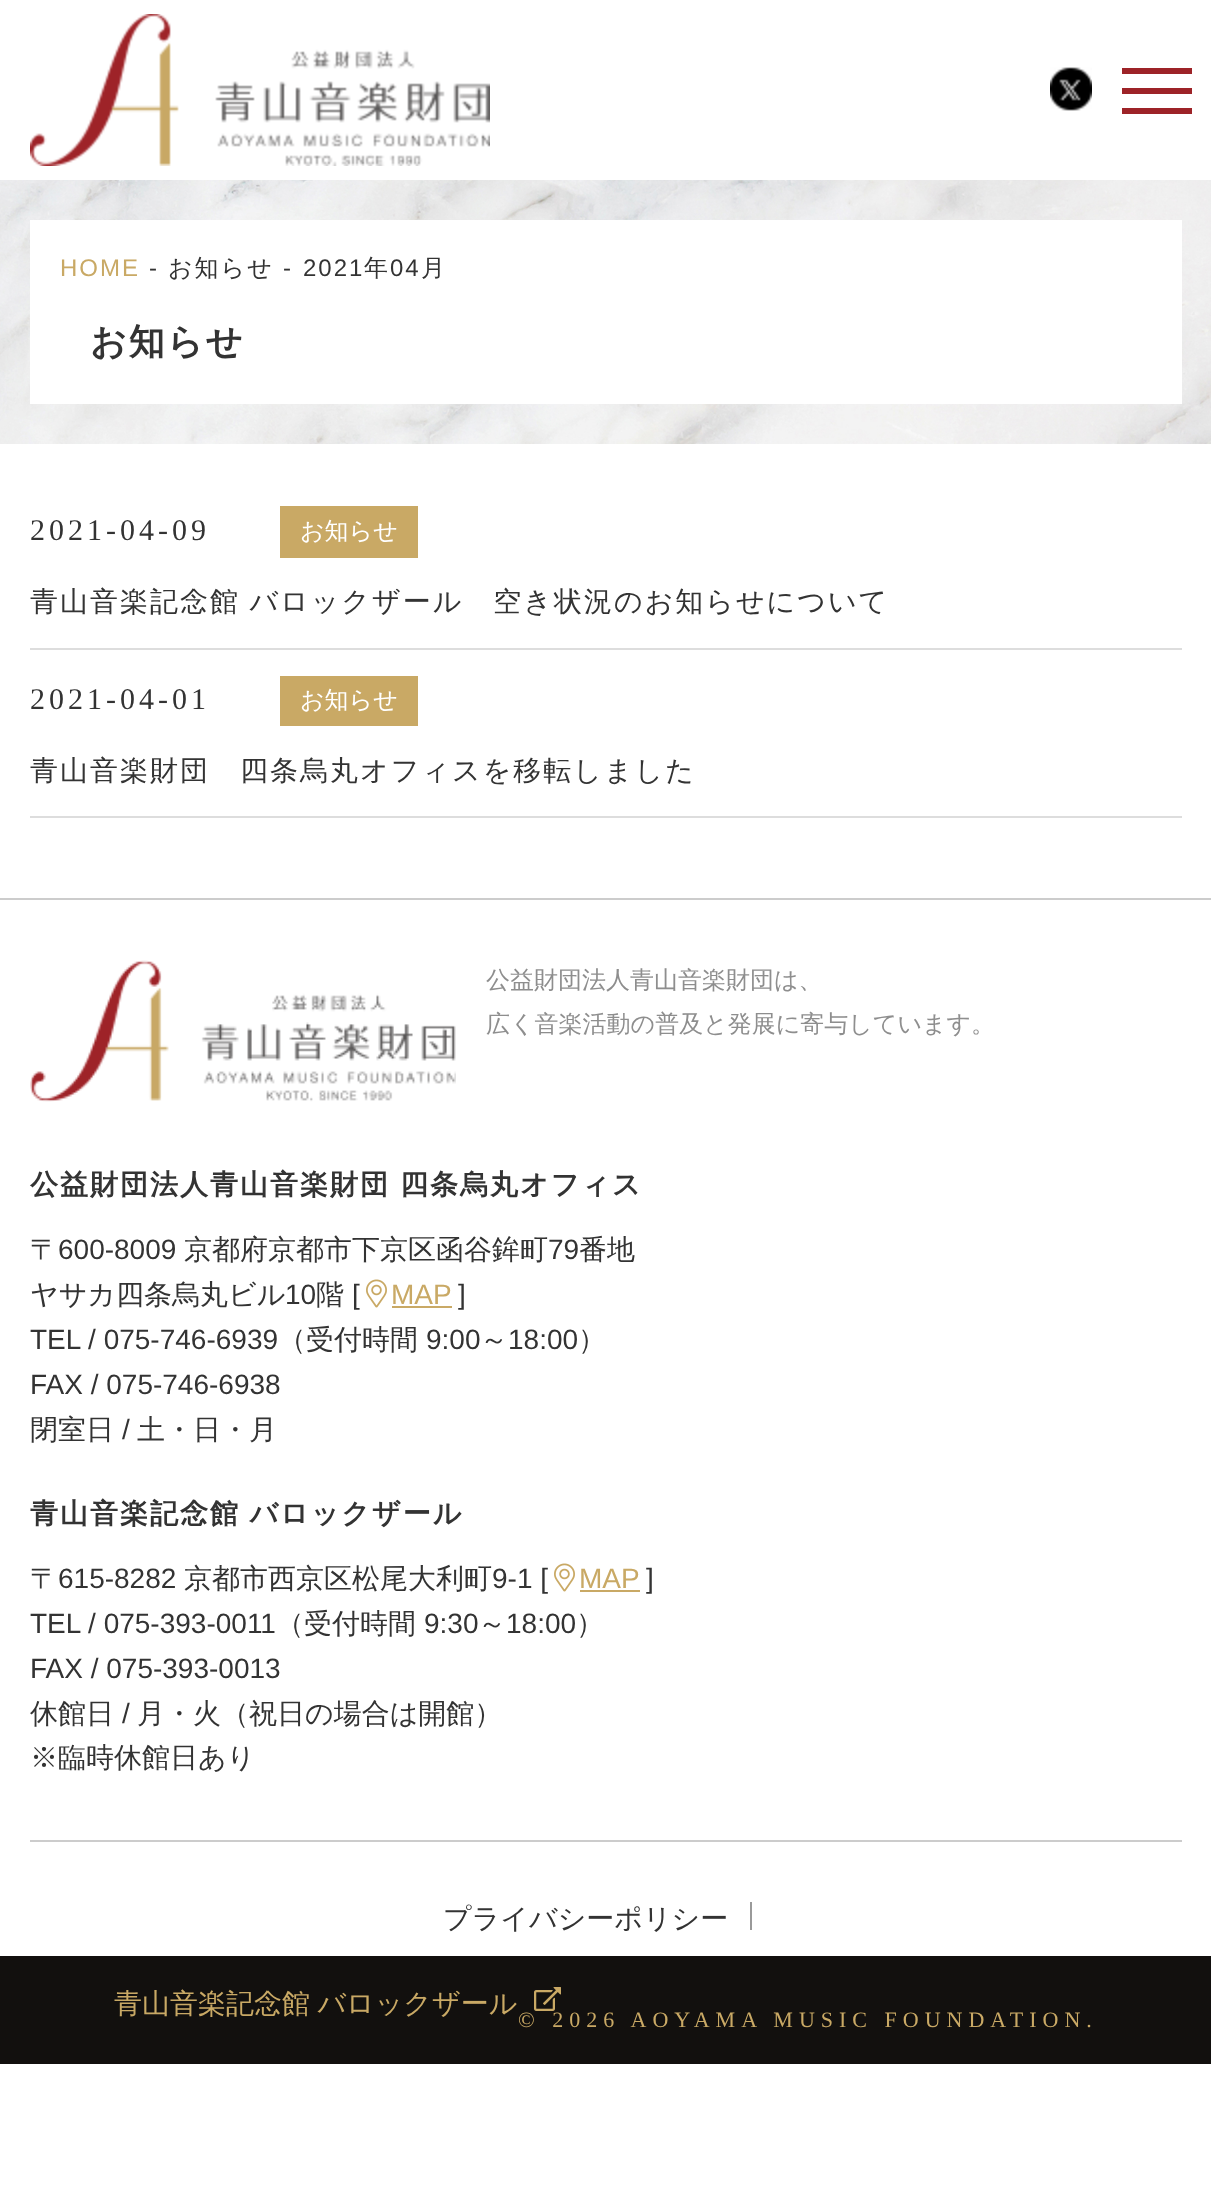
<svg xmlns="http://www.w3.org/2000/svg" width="1211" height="2194">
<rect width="100%" height="100%" fill="#fff"/>
<image x="30" y="14" width="460" height="152" href="media/1.png"/>
<image x="1050" y="67" width="42" height="44" href="media/2.png"/>
<rect x="1122" y="68" width="70" height="6" fill="#9d2328"/>
<rect x="1122" y="88" width="70" height="6" fill="#9d2328"/>
<rect x="1122" y="108" width="70" height="6" fill="#9d2328"/>
<image x="0" y="180" width="1211" height="264" href="media/3.png"/>
<rect x="30" y="220" width="1152" height="184" fill="#fff"/>
<text x="60" y="276" style="font-family:Liberation Sans;font-size:24px;letter-spacing:2px;fill:#c9a965">HOME</text>
<text x="149" y="276" style="font-family:Liberation Sans;font-size:24px;letter-spacing:2px;fill:#333">-</text>
<text x="168" y="276" style="font-family:WenQuanYi Zen Hei;font-size:24px;font-weight:500;letter-spacing:2px;fill:#333">お知らせ</text>
<text x="283" y="276" style="font-family:Liberation Sans;font-size:24px;letter-spacing:2px;fill:#333">-</text>
<text x="303" y="276" style="font-family:Liberation Sans;font-size:24px;letter-spacing:2px;fill:#333">2021</text>
<text x="364" y="276" style="font-family:WenQuanYi Zen Hei;font-size:24px;font-weight:500;letter-spacing:2px;fill:#333">年</text>
<text x="390" y="276" style="font-family:Liberation Sans;font-size:24px;letter-spacing:2px;fill:#333">04</text>
<text x="421" y="276" style="font-family:WenQuanYi Zen Hei;font-size:24px;font-weight:500;letter-spacing:2px;fill:#333">月</text>
<text x="90" y="354" style="font-family:WenQuanYi Zen Hei;font-size:36px;font-weight:bold;letter-spacing:2px;fill:#333">お知らせ</text>
<rect x="30" y="648" width="1152" height="2" fill="#ddd"/>
<text x="30" y="540" style="font-family:Liberation Serif;font-size:30px;letter-spacing:4px;fill:#333">2021-04-09</text>
<rect x="280" y="506" width="138" height="52" fill="#c9a965"/>
<text x="300" y="539" style="font-family:WenQuanYi Zen Hei;font-size:24px;font-weight:500;fill:#fff">お知らせ</text>
<text x="30" y="611" word-spacing="-1" style="font-family:WenQuanYi Zen Hei;font-size:28px;font-weight:500;letter-spacing:2px;fill:#333">青山音楽記念館 バロックザール　空き状況のお知らせについて</text>
<rect x="30" y="816" width="1152" height="2" fill="#ddd"/>
<text x="30" y="709" style="font-family:Liberation Serif;font-size:30px;letter-spacing:4px;fill:#333">2021-04-01</text>
<rect x="280" y="676" width="138" height="50" fill="#c9a965"/>
<text x="300" y="708" style="font-family:WenQuanYi Zen Hei;font-size:24px;font-weight:500;fill:#fff">お知らせ</text>
<text x="30" y="780" style="font-family:WenQuanYi Zen Hei;font-size:28px;font-weight:500;letter-spacing:2px;fill:#333">青山音楽財団　四条烏丸オフィスを移転しました</text>
<rect y="898" width="1211" height="2" fill="#ccc"/>
<rect x="30" y="1840" width="1152" height="2" fill="#ccc"/>
<image x="30" y="960" width="426" height="142" href="media/4.png"/>
<text x="486" y="988" style="font-family:WenQuanYi Zen Hei;font-size:24px;font-weight:500;fill:#8e8e8e">公益財団法人青山音楽財団は、</text>
<text x="486" y="1032" style="font-family:WenQuanYi Zen Hei;font-size:24px;font-weight:500;fill:#8e8e8e">広く音楽活動の普及と発展に寄与しています。</text>
<text x="30" y="1194" style="font-family:WenQuanYi Zen Hei;font-size:28px;font-weight:bold;letter-spacing:2px;fill:#333">公益財団法人青山音楽財団</text>
<text x="400" y="1194" style="font-family:WenQuanYi Zen Hei;font-size:28px;font-weight:bold;letter-spacing:2px;fill:#333">四条烏丸オフィス</text>
<text x="30" y="1259" style="font-family:WenQuanYi Zen Hei;font-size:28px;font-weight:500;fill:#333">〒</text>
<text x="58" y="1259" style="font-family:Liberation Sans;font-size:28px;fill:#333">600-8009</text>
<text x="184" y="1259" style="font-family:WenQuanYi Zen Hei;font-size:28px;font-weight:500;fill:#333">京都府京都市下京区函谷鉾町</text>
<text x="548" y="1259" style="font-family:Liberation Sans;font-size:28px;fill:#333">79</text>
<text x="579" y="1259" style="font-family:WenQuanYi Zen Hei;font-size:28px;font-weight:500;fill:#333">番地</text>
<text x="30" y="1304" style="font-family:WenQuanYi Zen Hei;font-size:28px;font-weight:500;fill:#333">ヤサカ四条烏丸ビル</text>
<text x="285" y="1304" style="font-family:Liberation Sans;font-size:28px;fill:#333">10</text>
<text x="316" y="1304" style="font-family:WenQuanYi Zen Hei;font-size:28px;font-weight:500;fill:#333">階</text>
<text x="352" y="1304" style="font-family:Liberation Sans;font-size:28px;fill:#333">[</text>
<image x="366" y="1279" width="21" height="29" href="media/5.png"/>
<text x="391" y="1304" style="font-family:Liberation Sans;font-size:28px;fill:#c9a965">MAP</text>
<rect x="392" y="1306" width="60" height="2" fill="#c9a965"/>
<text x="458" y="1304" style="font-family:Liberation Sans;font-size:28px;fill:#333">]</text>
<text x="30" y="1349" style="font-family:Liberation Sans;font-size:28px;fill:#333">TEL / 075-746-6939</text>
<text x="278" y="1349" style="font-family:WenQuanYi Zen Hei;font-size:28px;font-weight:500;fill:#333">（受付時間</text>
<text x="426" y="1349" style="font-family:Liberation Sans;font-size:28px;fill:#333">9:00</text>
<text x="480" y="1349" style="font-family:WenQuanYi Zen Hei;font-size:28px;font-weight:500;fill:#333">～</text>
<text x="508" y="1349" style="font-family:Liberation Sans;font-size:28px;fill:#333">18:00</text>
<text x="578" y="1349" style="font-family:WenQuanYi Zen Hei;font-size:28px;font-weight:500;fill:#333">）</text>
<text x="30" y="1394" style="font-family:Liberation Sans;font-size:28px;fill:#333">FAX / 075-746-6938</text>
<text x="30" y="1439" style="font-family:WenQuanYi Zen Hei;font-size:28px;font-weight:500;fill:#333">閉室日</text>
<text x="122" y="1439" style="font-family:Liberation Sans;font-size:28px;fill:#333">/</text>
<text x="137" y="1439" style="font-family:WenQuanYi Zen Hei;font-size:28px;font-weight:500;fill:#333">土・日・月</text>
<text x="30" y="1523" word-spacing="-1" style="font-family:WenQuanYi Zen Hei;font-size:28px;font-weight:bold;letter-spacing:2px;fill:#333">青山音楽記念館 バロックザール</text>
<text x="30" y="1588" style="font-family:WenQuanYi Zen Hei;font-size:28px;font-weight:500;fill:#333">〒</text>
<text x="58" y="1588" style="font-family:Liberation Sans;font-size:28px;fill:#333">615-8282</text>
<text x="184" y="1588" style="font-family:WenQuanYi Zen Hei;font-size:28px;font-weight:500;fill:#333">京都市西京区松尾大利町</text>
<text x="492" y="1588" style="font-family:Liberation Sans;font-size:28px;fill:#333">9-1 [</text>
<image x="554" y="1563" width="21" height="29" href="media/5.png"/>
<text x="579" y="1588" style="font-family:Liberation Sans;font-size:28px;fill:#c9a965">MAP</text>
<rect x="580" y="1590" width="60" height="2" fill="#c9a965"/>
<text x="646" y="1588" style="font-family:Liberation Sans;font-size:28px;fill:#333">]</text>
<text x="30" y="1633" style="font-family:Liberation Sans;font-size:28px;fill:#333">TEL / 075-393-0011</text>
<text x="276" y="1633" style="font-family:WenQuanYi Zen Hei;font-size:28px;font-weight:500;fill:#333">（受付時間</text>
<text x="424" y="1633" style="font-family:Liberation Sans;font-size:28px;fill:#333">9:30</text>
<text x="478" y="1633" style="font-family:WenQuanYi Zen Hei;font-size:28px;font-weight:500;fill:#333">～</text>
<text x="506" y="1633" style="font-family:Liberation Sans;font-size:28px;fill:#333">18:00</text>
<text x="576" y="1633" style="font-family:WenQuanYi Zen Hei;font-size:28px;font-weight:500;fill:#333">）</text>
<text x="30" y="1678" style="font-family:Liberation Sans;font-size:28px;fill:#333">FAX / 075-393-0013</text>
<text x="30" y="1723" style="font-family:WenQuanYi Zen Hei;font-size:28px;font-weight:500;fill:#333">休館日</text>
<text x="122" y="1723" style="font-family:Liberation Sans;font-size:28px;fill:#333">/</text>
<text x="137" y="1723" style="font-family:WenQuanYi Zen Hei;font-size:28px;font-weight:500;fill:#333">月・火（祝日の場合は開館）</text>
<text x="30" y="1767" style="font-family:WenQuanYi Zen Hei;font-size:28px;font-weight:500;fill:#333">※臨時休館日あり</text>
<text x="443" y="1928" style="font-family:WenQuanYi Zen Hei;font-size:28px;font-weight:500;fill:#333">プライバシーポリシー</text>
<rect x="750" y="1902" width="2" height="28" fill="#9a9a9a"/>
<rect y="1956" width="1211" height="108" fill="#12100e"/>
<text x="114" y="2013" word-spacing="-1" style="font-family:WenQuanYi Zen Hei;font-size:28px;font-weight:500;fill:#c9a965">青山音楽記念館 バロックザール</text>
<image x="534" y="1987" width="27" height="24" href="media/6.png"/>
<text x="518" y="2027" style="font-family:Liberation Serif;font-size:22px;letter-spacing:6px;fill:#c9a965">© 2026 AOYAMA MUSIC FOUNDATION.</text>
</svg>
